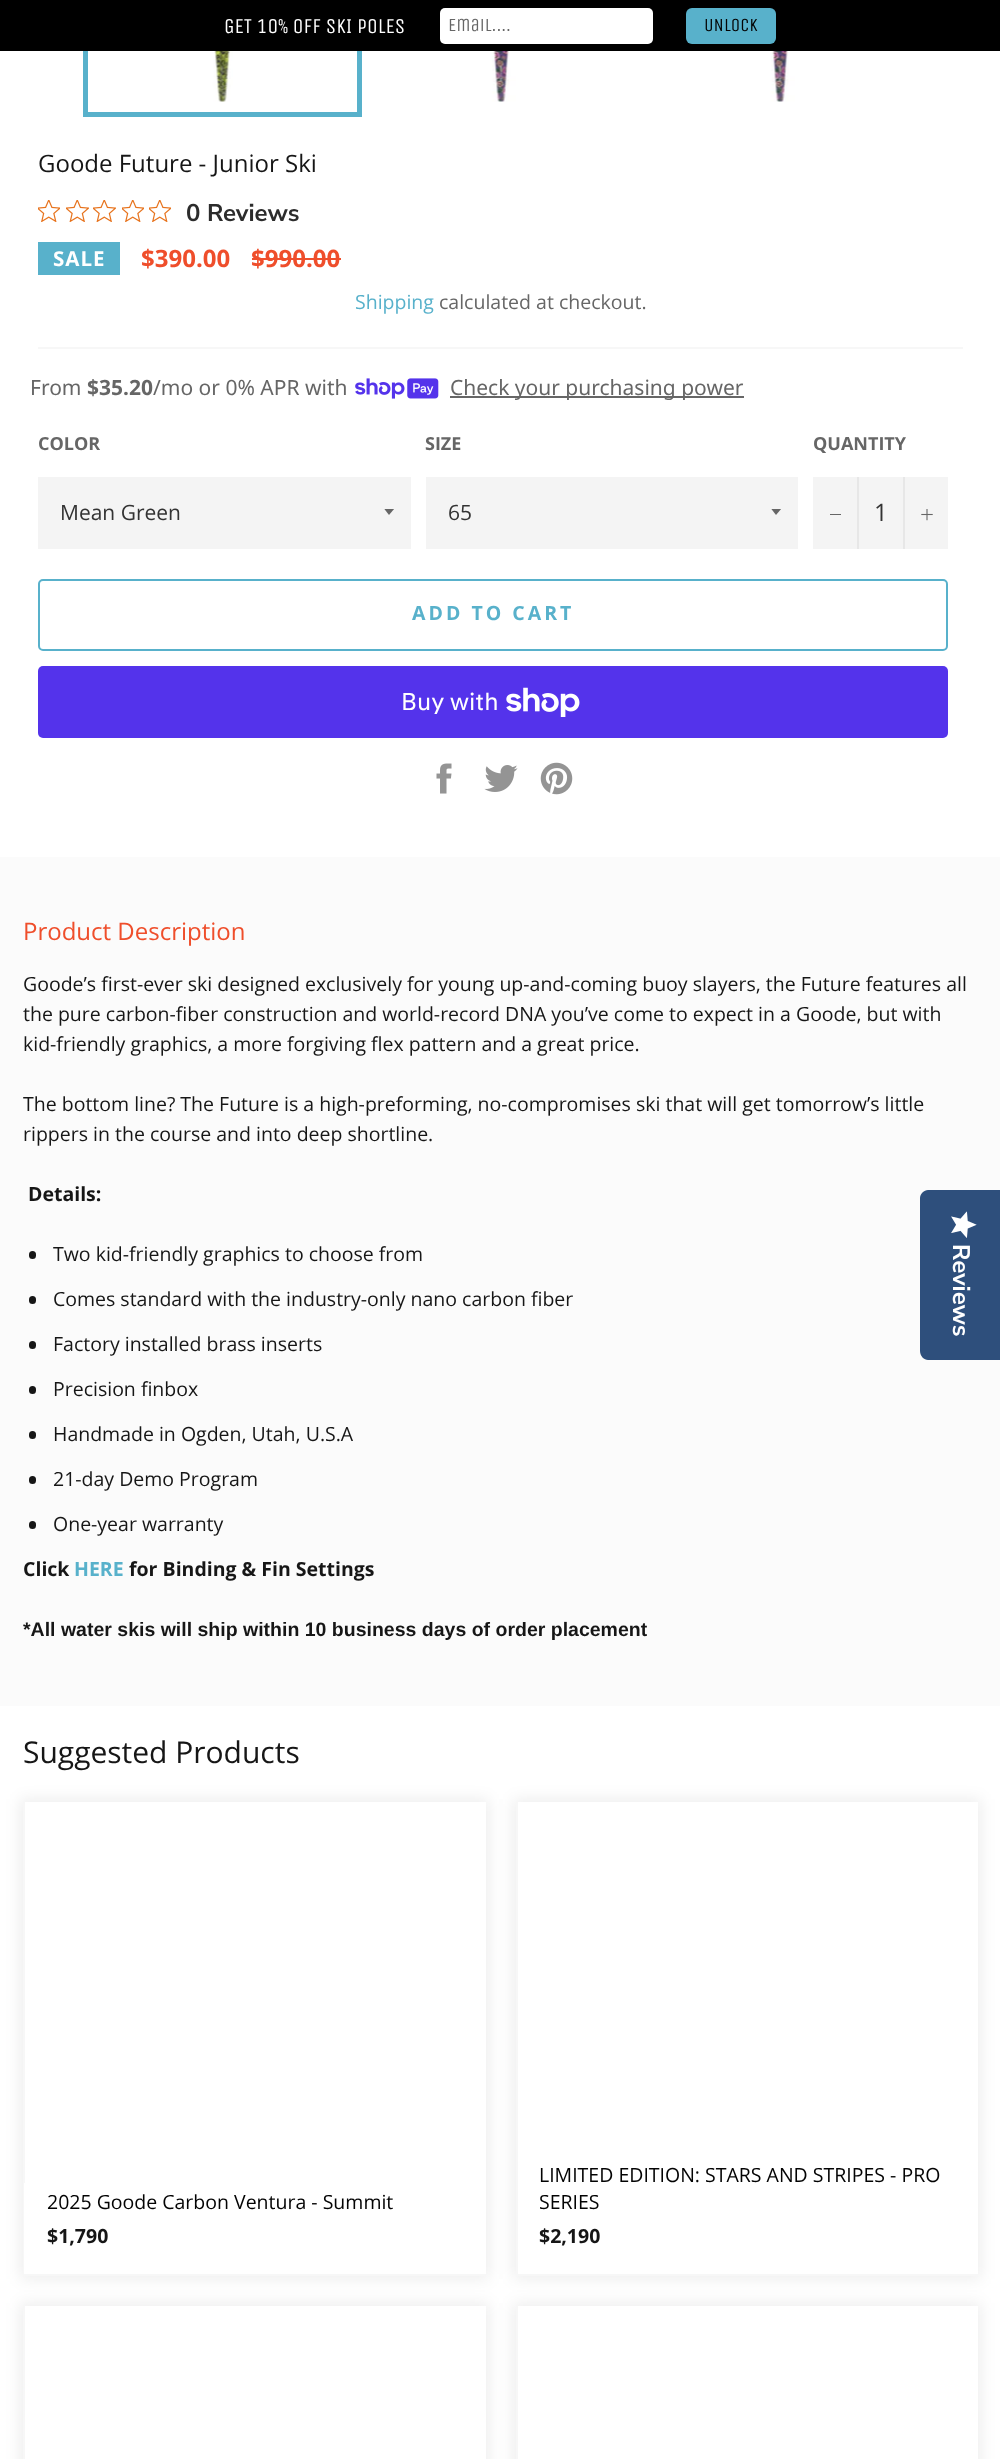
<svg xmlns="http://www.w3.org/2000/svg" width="1000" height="2459">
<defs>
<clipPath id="clip1"><rect x="384" y="509" width="12" height="7"/></clipPath>
<clipPath id="clip2"><rect x="771" y="509" width="12" height="7"/></clipPath>
<clipPath id="clip3"><path d="M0 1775h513v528h-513zm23 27h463v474h-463z" clip-rule="evenodd"/></clipPath>
<clipPath id="clip4"><path d="M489 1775h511v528h-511zm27 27h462v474h-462z" clip-rule="evenodd"/></clipPath>
<clipPath id="clip5"><path d="M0 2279h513v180h-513zm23 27h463v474h-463z" clip-rule="evenodd"/></clipPath>
<clipPath id="clip6"><path d="M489 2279h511v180h-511zm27 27h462v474h-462z" clip-rule="evenodd"/></clipPath>
</defs>
<rect width="100%" height="100%" fill="#fff"/>
<image x="210" y="51" width="23" height="51" href="media/1.png"/>
<rect x="85.5" y="-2.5" width="274" height="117" fill="none" stroke="#58b1cb" stroke-width="5"/>
<rect width="1000" height="51" fill="#000"/>
<text x="224" y="33" style="font-family:Unica One;font-size:21px;fill:#fff">GET 10% OFF SKI POLES</text>
<rect x="440" y="8" width="213" height="36" rx="5" fill="#fff"/>
<text x="448" y="31" style="font-family:Unica One;font-size:18.5px;fill:#666">Email....</text>
<rect x="686" y="8" width="90" height="36" rx="6" fill="#58b1cb"/>
<text x="704" y="31" style="font-family:Unica One;font-size:18.5px;fill:#030303">UNLOCK</text>
<image x="491" y="51" width="25" height="51" href="media/2.png"/>
<image x="770" y="51" width="25" height="51" href="media/2.png"/>
<text x="38" y="172" style="font-family:Open Sans;font-size:24px;fill:#161616">Goode Future - Junior Ski</text>
<image x="38" y="200" width="22" height="22" href="media/3.png"/>
<image x="66" y="200" width="23" height="22" href="media/4.png"/>
<image x="93" y="200" width="23" height="22" href="media/4.png"/>
<image x="122" y="200" width="22" height="22" href="media/3.png"/>
<image x="149" y="200" width="22" height="22" href="media/3.png"/>
<text x="186" y="221" style="font-family:Nunito Sans;font-size:24px;font-weight:200;fill:#2c2c2c">0 Reviews</text>
<rect x="38" y="242" width="82" height="33" fill="#58b1cb"/>
<text x="53" y="266" style="font-family:Open Sans;font-size:20.5px;font-weight:bold;letter-spacing:1px;fill:#fff">SALE</text>
<text x="141" y="267" style="font-family:Open Sans;font-size:24px;font-weight:bold;fill:#ef4e2b">$390.00</text>
<text x="251" y="267" style="font-family:Open Sans;font-size:24px;font-weight:bold;fill:#ef4e2b">$990.00</text>
<rect x="252" y="258" width="89" height="2" fill="#ef4e2b"/>
<text x="355" y="309" style="font-family:Open Sans;font-size:19.5px;fill:#58b1cb">Shipping</text>
<text x="439" y="309" style="font-family:Open Sans;font-size:19.5px;fill:#666">calculated at checkout.</text>
<rect x="38" y="347" width="925" height="2" fill="#f7f7f7"/>
<text x="30" y="395" style="font-family:Noto Sans;font-size:21px;fill:#666">From</text>
<text x="87" y="395" style="font-family:Noto Sans;font-size:21px;font-weight:bold;fill:#666">$35.20</text>
<text x="153" y="395" style="font-family:Noto Sans;font-size:21px;fill:#666">/mo or 0% APR with</text>
<image x="355" y="378" width="84" height="21" href="media/5.png"/>
<rect x="450" y="396" width="294" height="2" fill="#666"/>
<text x="450" y="395" style="font-family:Noto Sans;font-size:21px;fill:#666">Check your purchasing power</text>
<text x="38" y="450" style="font-family:Open Sans;font-size:18px;font-weight:bold;fill:#666">COLOR</text>
<rect x="38" y="477" width="373" height="72" fill="#f4f4f4"/>
<g clip-path="url(#clip1)">
<path d="M384 508.5l5 6.5l5.5-6.5z" fill="#666"/>
</g>
<text x="60" y="520" style="font-family:Open Sans;font-size:21px;fill:#333">Mean Green</text>
<text x="425" y="450" style="font-family:Open Sans;font-size:18px;font-weight:bold;fill:#666">SIZE</text>
<rect x="426" y="477" width="372" height="72" fill="#f4f4f4"/>
<g clip-path="url(#clip2)">
<path d="M771 508.5l5 6.5l5.5-6.5z" fill="#666"/>
</g>
<text x="448" y="520" style="font-family:Open Sans;font-size:21px;fill:#333">65</text>
<text x="813" y="450" style="font-family:Open Sans;font-size:18px;font-weight:bold;fill:#666">QUANTITY</text>
<rect x="813" y="477" width="135" height="72" fill="#f4f4f4"/>
<rect x="857" y="477" width="2" height="72" fill="#e7e7e7"/>
<rect x="830" y="514" width="11" height="1" fill="#666"/>
<text x="874" y="521" style="font-family:Open Sans;font-size:24px;fill:#333">1</text>
<rect x="903" y="477" width="2" height="72" fill="#e7e7e7"/>
<image x="921" y="509" width="12" height="12" href="media/6.png"/>
<rect x="39" y="580" width="908" height="70" rx="4" fill="none" stroke="#58b1cb" stroke-width="2"/>
<text x="412" y="620" style="font-family:Open Sans;font-size:19.5px;font-weight:bold;letter-spacing:3px;fill:#58b1cb">ADD TO CART</text>
<rect x="38" y="666" width="910" height="72" rx="5" fill="#5433eb"/>
<text x="401" y="710" style="font-family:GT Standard;font-size:24px;fill:#fff">Buy with</text>
<image x="506" y="687" width="74" height="30" href="media/7.png"/>
<image x="436" y="763" width="16" height="31" href="media/8.png"/>
<image x="484" y="765" width="34" height="27" href="media/9.png"/>
<image x="540" y="762" width="33" height="33" href="media/10.png"/>
<rect y="857" width="1000" height="849" fill="#fbfbfb"/>
<text x="23" y="940" style="font-family:Open Sans;font-size:24px;fill:#ef4e2b">Product Description</text>
<text x="23" y="991" style="font-family:Open Sans;font-size:19.5px;fill:#161616">Goode’s first-ever ski designed exclusively for young up-and-coming buoy slayers, the Future features all</text>
<text x="23" y="1021" style="font-family:Open Sans;font-size:19.5px;fill:#161616">the pure carbon-fiber construction and world-record DNA you’ve come to expect in a Goode, but with</text>
<text x="23" y="1051" style="font-family:Open Sans;font-size:19.5px;fill:#161616">kid-friendly graphics, a more forgiving flex pattern and a great price.</text>
<text x="23" y="1111" style="font-family:Open Sans;font-size:19.5px;fill:#161616">The bottom line? The Future is a high-preforming, no-compromises ski that will get tomorrow’s little</text>
<text x="23" y="1141" style="font-family:Open Sans;font-size:19.5px;fill:#161616">rippers in the course and into deep shortline.</text>
<text x="28" y="1201" style="font-family:Open Sans;font-size:19.5px;font-weight:bold;fill:#161616">Details:</text>
<rect x="29" y="1251" width="7" height="8" rx="3.5" fill="#161616"/>
<text x="53" y="1261" style="font-family:Open Sans;font-size:19.5px;fill:#161616">Two kid-friendly graphics to choose from</text>
<rect x="29" y="1296" width="7" height="8" rx="3.5" fill="#161616"/>
<text x="53" y="1306" style="font-family:Open Sans;font-size:19.5px;fill:#161616">Comes standard with the industry-only nano carbon fiber</text>
<rect x="29" y="1341" width="7" height="8" rx="3.5" fill="#161616"/>
<text x="53" y="1351" style="font-family:Open Sans;font-size:19.5px;fill:#161616">Factory installed brass inserts</text>
<rect x="29" y="1386" width="7" height="8" rx="3.5" fill="#161616"/>
<text x="53" y="1396" style="font-family:Open Sans;font-size:19.5px;fill:#161616">Precision finbox</text>
<rect x="29" y="1431" width="7" height="8" rx="3.5" fill="#161616"/>
<text x="53" y="1441" style="font-family:Open Sans;font-size:19.5px;fill:#161616">Handmade in Ogden, Utah, U.S.A</text>
<rect x="29" y="1476" width="7" height="8" rx="3.5" fill="#161616"/>
<text x="53" y="1486" style="font-family:Open Sans;font-size:19.5px;fill:#161616">21-day Demo Program</text>
<rect x="29" y="1521" width="7" height="8" rx="3.5" fill="#161616"/>
<text x="53" y="1531" style="font-family:Open Sans;font-size:19.5px;fill:#161616">One-year warranty</text>
<text x="23" y="1576" style="font-family:Open Sans;font-size:19.5px;font-weight:bold;fill:#161616">Click</text>
<text x="74" y="1576" style="font-family:Open Sans;font-size:19.5px;font-weight:bold;fill:#58b1cb">HERE</text>
<text x="129" y="1576" style="font-family:Open Sans;font-size:19.5px;font-weight:bold;fill:#161616">for Binding &amp; Fin Settings</text>
<text x="23" y="1636" style="font-family:Liberation Sans;font-size:19.5px;font-weight:bold;fill:#161616">*All water skis will ship within 10 business days of order placement</text>
<text x="23" y="1763" style="font-family:Open Sans;font-size:30px;fill:#161616">Suggested Products</text>
<g clip-path="url(#clip3)">
<rect x="20" y="1799" width="469" height="480" fill="#00000012" filter="blur(7.5px)"/>
</g>
<rect x="23" y="2274" width="463" height="2" fill="#f7f7f7"/>
<rect x="23" y="1802" width="2" height="474" fill="#f7f7f7"/>
<rect x="24" y="2183" width="1" height="91" fill="#fff"/>
<text x="47" y="2209" style="font-family:Open Sans;font-size:19.5px;fill:#030303">2025 Goode Carbon Ventura - Summit</text>
<text x="47" y="2243" style="font-family:Open Sans;font-size:19.5px;font-weight:bold;fill:#161616">$1,790</text>
<g clip-path="url(#clip4)">
<rect x="513" y="1799" width="468" height="480" fill="#00000012" filter="blur(7.5px)"/>
</g>
<rect x="516" y="2274" width="462" height="2" fill="#f7f7f7"/>
<rect x="516" y="1802" width="2" height="474" fill="#f7f7f7"/>
<text x="539" y="2182" style="font-family:Open Sans;font-size:19.5px;fill:#030303">LIMITED EDITION: STARS AND STRIPES - PRO</text>
<text x="539" y="2209" style="font-family:Open Sans;font-size:19.5px;fill:#030303">SERIES</text>
<text x="539" y="2243" style="font-family:Open Sans;font-size:19.5px;font-weight:bold;fill:#161616">$2,190</text>
<g clip-path="url(#clip5)">
<rect x="20" y="2303" width="469" height="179" fill="#00000012" filter="blur(7.5px)"/>
</g>
<rect x="23" y="2306" width="2" height="153" fill="#f7f7f7"/>
<g clip-path="url(#clip6)">
<rect x="513" y="2303" width="468" height="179" fill="#00000012" filter="blur(7.5px)"/>
</g>
<rect x="516" y="2306" width="2" height="153" fill="#f7f7f7"/>
<path d="M1000 1190v170h-72c-4 0-8-4-8-9v-153c0-4 4-8 8-8z" fill="#2e4f7c"/>
<image x="951" y="1211" width="26" height="27" href="media/11.png"/>
<text x="953" y="1244" transform="rotate(90 953 1244)" style="font-family:Nunito Sans;font-size:24px;font-weight:200;fill:#fff">Reviews</text>
</svg>
